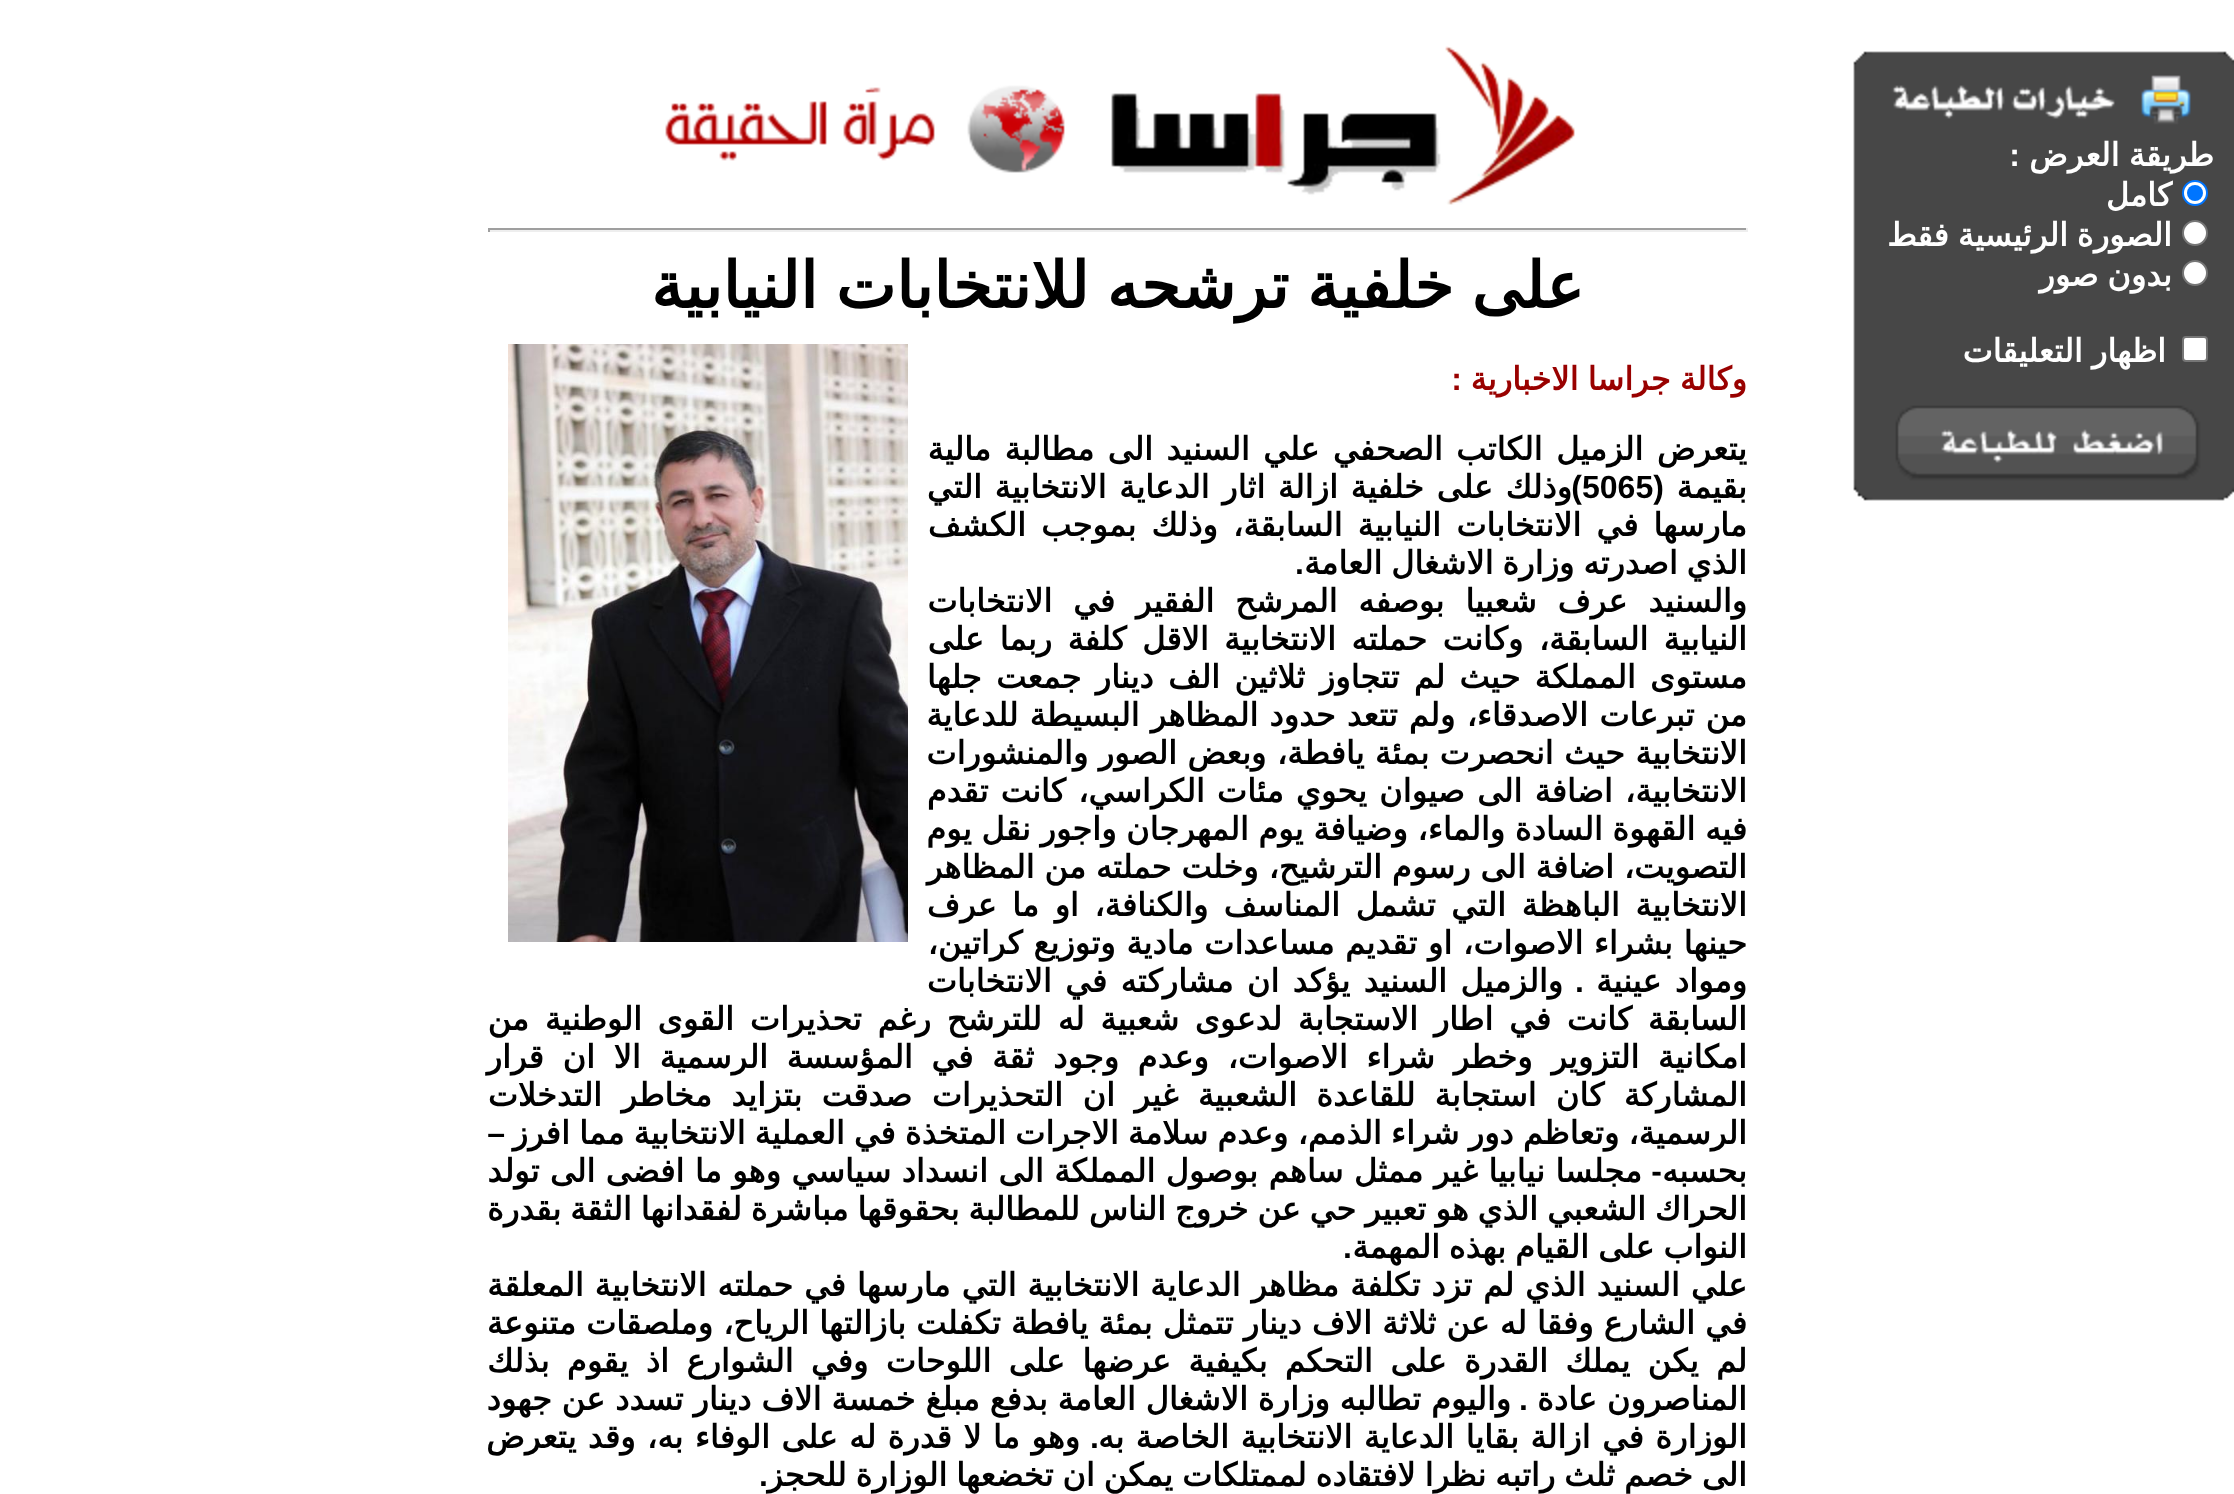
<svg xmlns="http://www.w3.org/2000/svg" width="2234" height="1494">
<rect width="100%" height="100%" fill="#fff"/>
<image x="1853" y="51" width="381" height="450" href="media/1.png"/>
<text x="2214" y="166" word-spacing="-1" style="font-family:DejaVu Sans;font-size:32px;font-weight:bold;direction:rtl;fill:#fff">طريقة العرض</text>
<text x="2020" y="166" style="font-family:Liberation Sans;font-size:32px;font-weight:bold;direction:rtl;fill:#fff">:</text>
<circle cx="2195" cy="193" r="12" fill="#fff" stroke="#0075ff" stroke-width="2"/>
<circle cx="2195" cy="193" r="8" fill="#0075ff"/>
<text x="2172" y="206" style="font-family:DejaVu Sans;font-size:32px;font-weight:bold;direction:rtl;fill:#fff">كامل</text>
<circle cx="2195" cy="233" r="12" fill="#fff" stroke="#767676" stroke-width="2"/>
<text x="2172" y="246" word-spacing="-1.25" style="font-family:DejaVu Sans;font-size:32px;font-weight:bold;direction:rtl;fill:#fff">الصورة الرئيسية فقط</text>
<circle cx="2195" cy="273" r="12" fill="#fff" stroke="#767676" stroke-width="2"/>
<text x="2172" y="286" word-spacing="-1.25" style="font-family:DejaVu Sans;font-size:32px;font-weight:bold;direction:rtl;fill:#fff">بدون صور</text>
<rect x="2183" y="337" width="24" height="24" rx="3" fill="#fff" stroke="#767676" stroke-width="2"/>
<text x="2166" y="362" word-spacing="-1" style="font-family:DejaVu Sans;font-size:32px;font-weight:bold;direction:rtl;fill:#fff">اظهار التعليقات</text>
<image x="665" y="46" width="910" height="159" href="media/2.png"/>
<rect x="488" y="228" width="1260" height="2" fill="#9f9f9f"/>
<rect x="1746" y="228" width="2" height="4" fill="#eee"/>
<rect x="488" y="230" width="1260" height="2" fill="#eee"/>
<rect x="488" y="228" width="2" height="4" fill="#9f9f9f"/>
<text x="1584" y="308" word-spacing="-2.5" style="font-family:DejaVu Sans;font-size:64px;font-weight:bold;direction:rtl;fill:#000">على خلفية ترشحه للانتخابات النيابية</text>
<image x="508" y="344" width="400" height="598" href="media/3.png"/>
<text x="1747" y="390" word-spacing="-1" style="font-family:DejaVu Sans;font-size:32px;font-weight:bold;direction:rtl;fill:#990100">وكالة جراسا الاخبارية</text>
<text x="1462" y="390" style="font-family:Liberation Sans;font-size:32px;font-weight:bold;direction:rtl;fill:#990100">:</text>
<text x="1747" y="460" word-spacing="3.25" style="font-family:DejaVu Sans;font-size:32px;font-weight:bold;direction:rtl;fill:#000">يتعرض الزميل الكاتب الصحفي علي السنيد الى مطالبة مالية</text>
<text x="1747" y="498" style="font-family:DejaVu Sans;font-size:32px;font-weight:bold;direction:rtl;fill:#000">بقيمة</text>
<text x="1664" y="498" style="font-family:Liberation Sans;font-size:32px;font-weight:bold;direction:rtl;fill:#000">(</text>
<text x="1582" y="498" style="font-family:Liberation Sans;font-size:32px;font-weight:bold;fill:#000">5065</text>
<text x="1582" y="498" style="font-family:Liberation Sans;font-size:32px;font-weight:bold;direction:rtl;fill:#000">)</text>
<text x="1572" y="498" word-spacing="2.5" style="font-family:DejaVu Sans;font-size:32px;font-weight:bold;direction:rtl;fill:#000">وذلك على خلفية ازالة اثار الدعاية الانتخابية التي</text>
<text x="1747" y="536" word-spacing="5" style="font-family:DejaVu Sans;font-size:32px;font-weight:bold;direction:rtl;fill:#000">مارسها في الانتخابات النيابية السابقة، وذلك بموجب الكشف</text>
<text x="1747" y="574" word-spacing="-1.25" style="font-family:DejaVu Sans;font-size:32px;font-weight:bold;direction:rtl;fill:#000">الذي اصدرته وزارة الاشغال العامة</text>
<text x="1304" y="574" style="font-family:Liberation Sans;font-size:32px;font-weight:bold;direction:rtl;fill:#000">.</text>
<text x="1747" y="612" word-spacing="10.75" style="font-family:DejaVu Sans;font-size:32px;font-weight:bold;direction:rtl;fill:#000">والسنيد عرف شعبيا بوصفه المرشح الفقير في الانتخابات</text>
<text x="1747" y="650" word-spacing="5.25" style="font-family:DejaVu Sans;font-size:32px;font-weight:bold;direction:rtl;fill:#000">النيابية السابقة، وكانت حملته الانتخابية الاقل كلفة ربما على</text>
<text x="1747" y="688" word-spacing="4.25" style="font-family:DejaVu Sans;font-size:32px;font-weight:bold;direction:rtl;fill:#000">مستوى المملكة حيث لم تتجاوز ثلاثين الف دينار جمعت جلها</text>
<text x="1747" y="726" word-spacing="1" style="font-family:DejaVu Sans;font-size:32px;font-weight:bold;direction:rtl;fill:#000">من تبرعات الاصدقاء، ولم تتعد حدود المظاهر البسيطة للدعاية</text>
<text x="1747" y="764" word-spacing="0.25" style="font-family:DejaVu Sans;font-size:32px;font-weight:bold;direction:rtl;fill:#000">الانتخابية حيث انحصرت بمئة يافطة، وبعض الصور والمنشورات</text>
<text x="1747" y="802" word-spacing="2" style="font-family:DejaVu Sans;font-size:32px;font-weight:bold;direction:rtl;fill:#000">الانتخابية، اضافة الى صيوان يحوي مئات الكراسي، كانت تقدم</text>
<text x="1747" y="840" word-spacing="-0.5" style="font-family:DejaVu Sans;font-size:32px;font-weight:bold;direction:rtl;fill:#000">فيه القهوة السادة والماء، وضيافة يوم المهرجان واجور نقل يوم</text>
<text x="1747" y="878" word-spacing="-0.25" style="font-family:DejaVu Sans;font-size:32px;font-weight:bold;direction:rtl;fill:#000">التصويت، اضافة الى رسوم الترشيح، وخلت حملته من المظاهر</text>
<text x="1747" y="916" word-spacing="5.25" style="font-family:DejaVu Sans;font-size:32px;font-weight:bold;direction:rtl;fill:#000">الانتخابية الباهظة التي تشمل المناسف والكنافة، او ما عرف</text>
<text x="1747" y="954" word-spacing="0.5" style="font-family:DejaVu Sans;font-size:32px;font-weight:bold;direction:rtl;fill:#000">حينها بشراء الاصوات، او تقديم مساعدات مادية وتوزيع كراتين،</text>
<text x="1747" y="992" word-spacing="3.25" style="font-family:DejaVu Sans;font-size:32px;font-weight:bold;direction:rtl;fill:#000">ومواد عينية</text>
<text x="1584" y="992" style="font-family:Liberation Sans;font-size:32px;font-weight:bold;direction:rtl;fill:#000">.</text>
<text x="1563" y="992" word-spacing="3.25" style="font-family:DejaVu Sans;font-size:32px;font-weight:bold;direction:rtl;fill:#000">والزميل السنيد يؤكد ان مشاركته في الانتخابات</text>
<text x="1747" y="1030" word-spacing="5.6" style="font-family:DejaVu Sans;font-size:32px;font-weight:bold;direction:rtl;fill:#000">السابقة كانت في اطار الاستجابة لدعوى شعبية له للترشح رغم تحذيرات القوى الوطنية من</text>
<text x="1747" y="1068" word-spacing="8.5" style="font-family:DejaVu Sans;font-size:32px;font-weight:bold;direction:rtl;fill:#000">امكانية التزوير وخطر شراء الاصوات، وعدم وجود ثقة في المؤسسة الرسمية الا ان قرار</text>
<text x="1747" y="1106" word-spacing="9.25" style="font-family:DejaVu Sans;font-size:32px;font-weight:bold;direction:rtl;fill:#000">المشاركة كان استجابة للقاعدة الشعبية غير ان التحذيرات صدقت بتزايد مخاطر التدخلات</text>
<text x="1747" y="1144" word-spacing="-1" style="font-family:DejaVu Sans;font-size:32px;font-weight:bold;direction:rtl;fill:#000">الرسمية، وتعاظم دور شراء الذمم، وعدم سلامة الاجرات المتخذة في العملية الانتخابية مما افرز</text>
<text x="505" y="1144" style="font-family:Liberation Sans;font-size:32px;font-weight:bold;direction:rtl;fill:#000">–</text>
<text x="1747" y="1182" style="font-family:DejaVu Sans;font-size:32px;font-weight:bold;direction:rtl;fill:#000">بحسبه</text>
<text x="1662" y="1182" style="font-family:Liberation Sans;font-size:32px;font-weight:bold;direction:rtl;fill:#000">-</text>
<text x="1642" y="1182" word-spacing="0.3" style="font-family:DejaVu Sans;font-size:32px;font-weight:bold;direction:rtl;fill:#000">مجلسا نيابيا غير ممثل ساهم بوصول المملكة الى انسداد سياسي وهو ما افضى الى تولد</text>
<text x="1747" y="1220" word-spacing="-1.25" style="font-family:DejaVu Sans;font-size:32px;font-weight:bold;direction:rtl;fill:#000">الحراك الشعبي الذي هو تعبير حي عن خروج الناس للمطالبة بحقوقها مباشرة لفقدانها الثقة بقدرة</text>
<text x="1747" y="1258" word-spacing="-1.25" style="font-family:DejaVu Sans;font-size:32px;font-weight:bold;direction:rtl;fill:#000">النواب على القيام بهذه المهمة</text>
<text x="1352" y="1258" style="font-family:Liberation Sans;font-size:32px;font-weight:bold;direction:rtl;fill:#000">.</text>
<text x="1747" y="1296" word-spacing="0.75" style="font-family:DejaVu Sans;font-size:32px;font-weight:bold;direction:rtl;fill:#000">علي السنيد الذي لم تزد تكلفة مظاهر الدعاية الانتخابية التي مارسها في حملته الانتخابية المعلقة</text>
<text x="1747" y="1334" word-spacing="-0.1" style="font-family:DejaVu Sans;font-size:32px;font-weight:bold;direction:rtl;fill:#000">في الشارع وفقا له عن ثلاثة الاف دينار تتمثل بمئة يافطة تكفلت بازالتها الرياح، وملصقات متنوعة</text>
<text x="1747" y="1372" word-spacing="7.25" style="font-family:DejaVu Sans;font-size:32px;font-weight:bold;direction:rtl;fill:#000">لم يكن يملك القدرة على التحكم بكيفية عرضها على اللوحات وفي الشوارع اذ يقوم بذلك</text>
<text x="1747" y="1410" word-spacing="-0.3" style="font-family:DejaVu Sans;font-size:32px;font-weight:bold;direction:rtl;fill:#000">المناصرون عادة</text>
<text x="1528" y="1410" style="font-family:Liberation Sans;font-size:32px;font-weight:bold;direction:rtl;fill:#000">.</text>
<text x="1511" y="1410" word-spacing="-0.3" style="font-family:DejaVu Sans;font-size:32px;font-weight:bold;direction:rtl;fill:#000">واليوم تطالبه وزارة الاشغال العامة بدفع مبلغ خمسة الاف دينار تسدد عن جهود</text>
<text x="1747" y="1448" word-spacing="1.25" style="font-family:DejaVu Sans;font-size:32px;font-weight:bold;direction:rtl;fill:#000">الوزارة في ازالة بقايا الدعاية الانتخابية الخاصة به</text>
<text x="1099" y="1448" style="font-family:Liberation Sans;font-size:32px;font-weight:bold;direction:rtl;fill:#000">.</text>
<text x="1080" y="1448" word-spacing="1.25" style="font-family:DejaVu Sans;font-size:32px;font-weight:bold;direction:rtl;fill:#000">وهو ما لا قدرة له على الوفاء به، وقد يتعرض</text>
<text x="1747" y="1486" word-spacing="-1.25" style="font-family:DejaVu Sans;font-size:32px;font-weight:bold;direction:rtl;fill:#000">الى خصم ثلث راتبه نظرا لافتقاده لممتلكات يمكن ان تخضعها الوزارة للحجز</text>
<text x="768" y="1486" style="font-family:Liberation Sans;font-size:32px;font-weight:bold;direction:rtl;fill:#000">.</text>
</svg>
